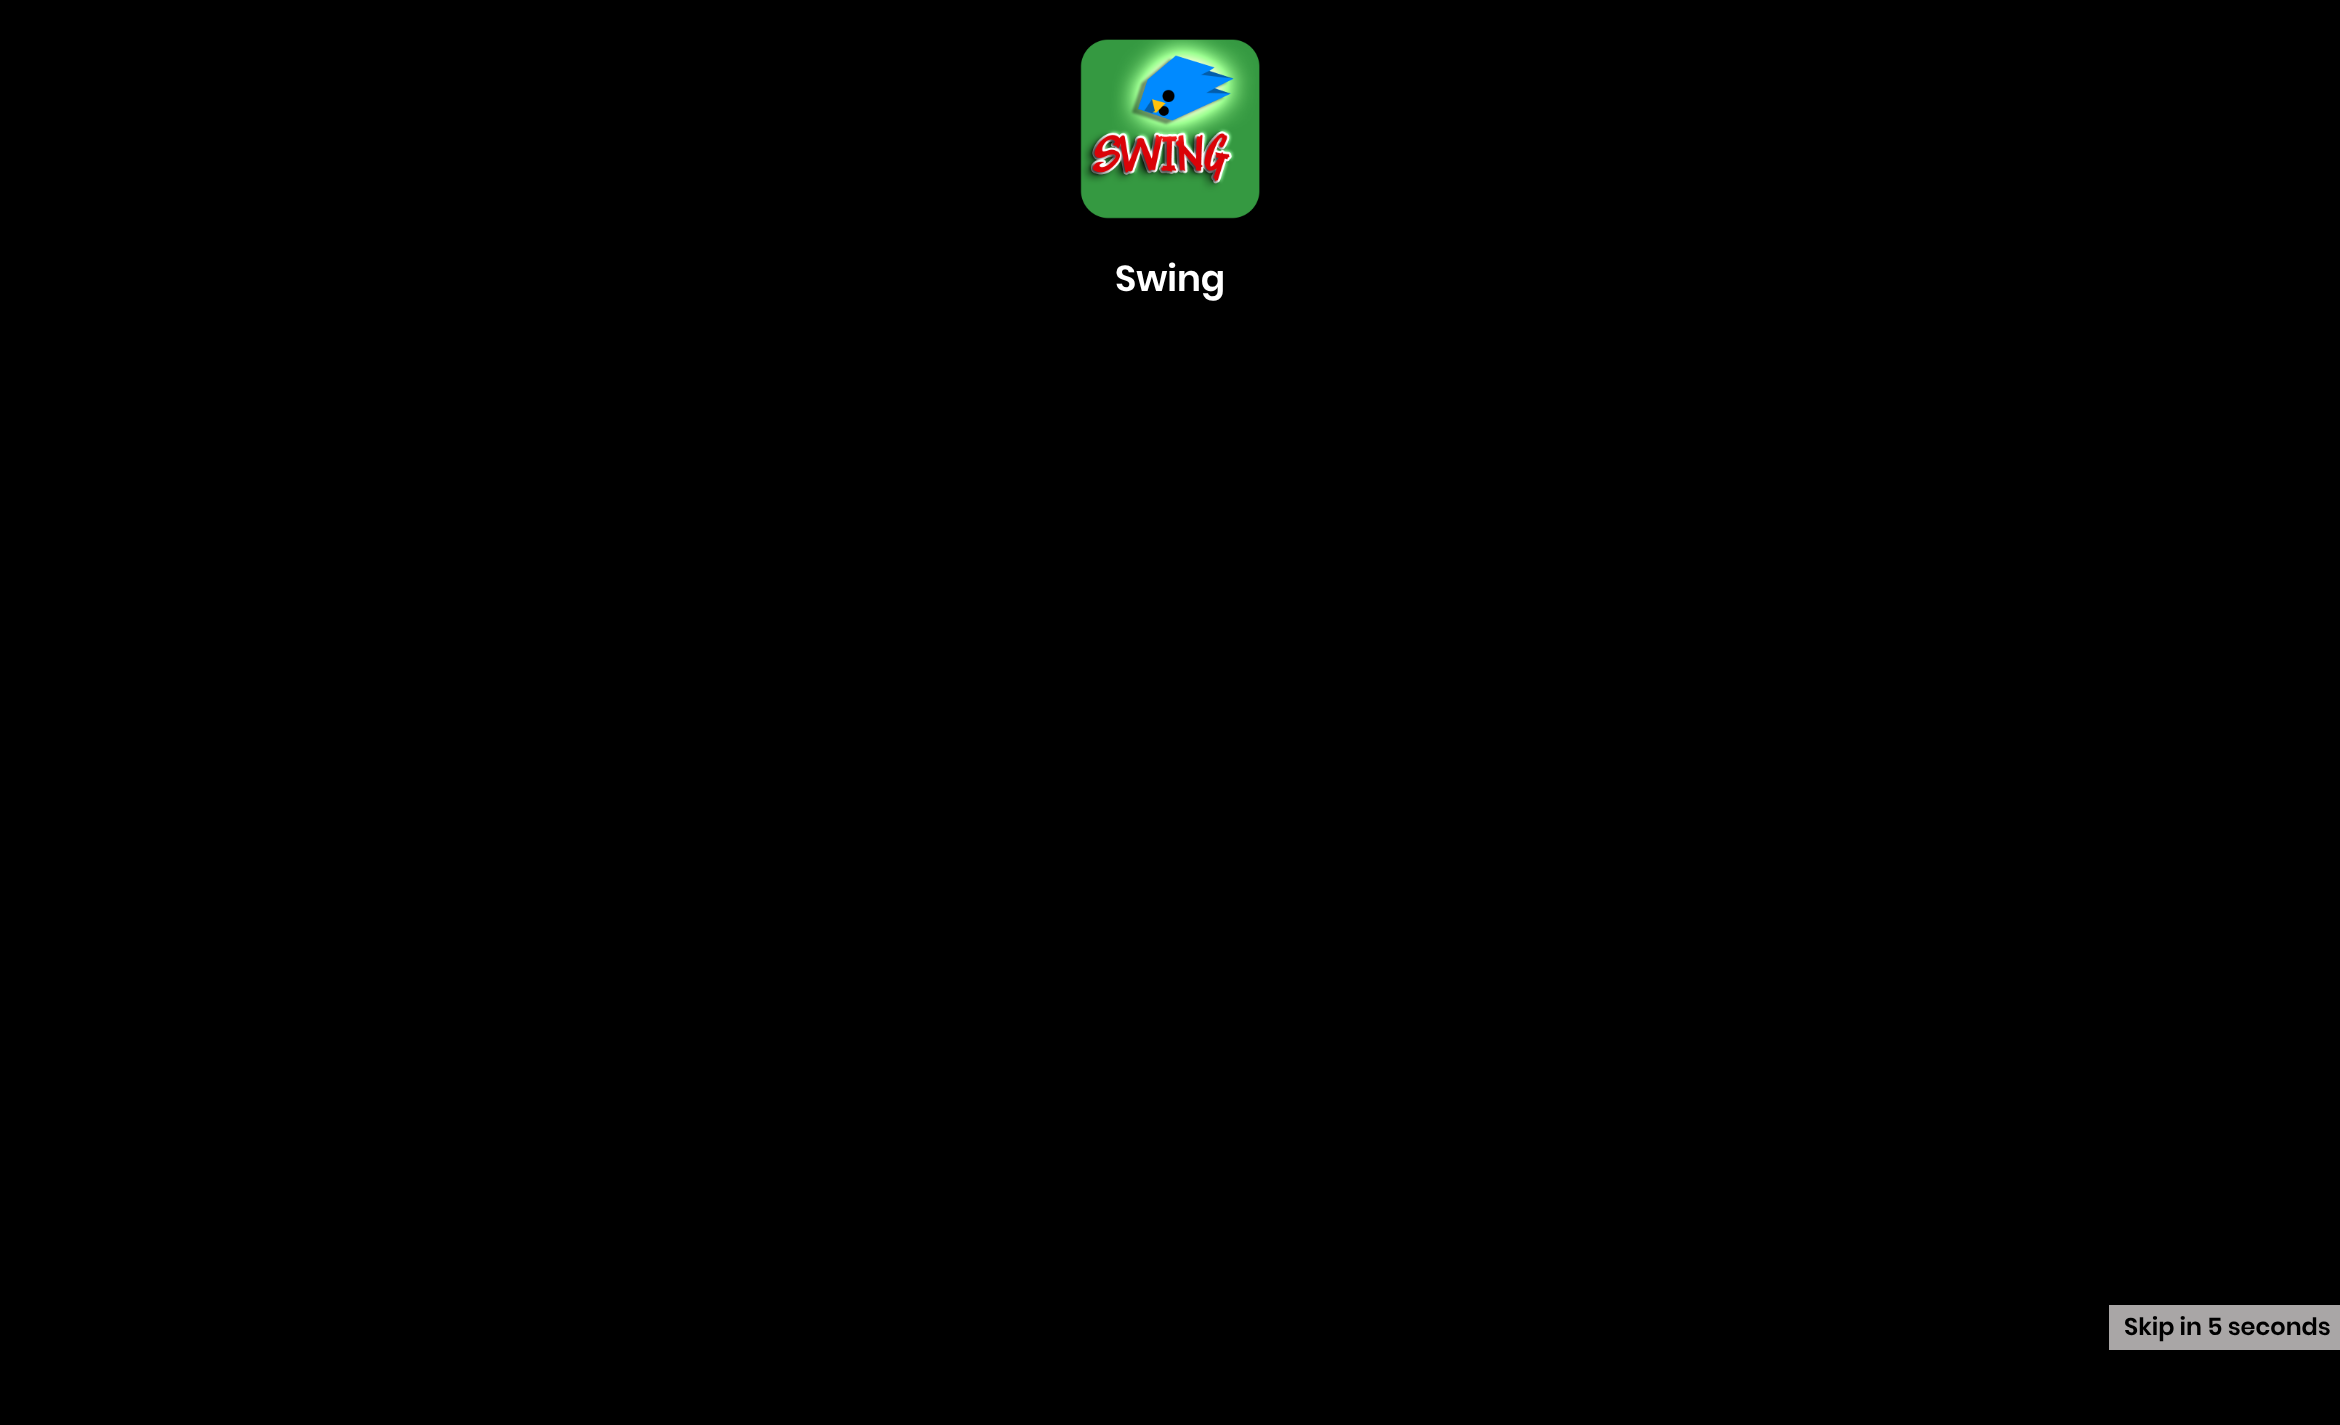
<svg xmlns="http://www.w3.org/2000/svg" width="2340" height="1425">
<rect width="100%" height="100%" fill="#000"/>
<image x="1080" y="39" width="180" height="180" href="media/1.png"/>
<text x="1115" y="291" style="font-family:Poppins;font-size:36px;font-weight:600;fill:#fff">Swing</text>
<rect x="2109" y="1305" width="231" height="45" fill="#a9a6a6"/>
<text x="2124" y="1335" style="font-family:Poppins;font-size:24px;font-weight:600;fill:#000">Skip in 5 seconds</text>
</svg>
